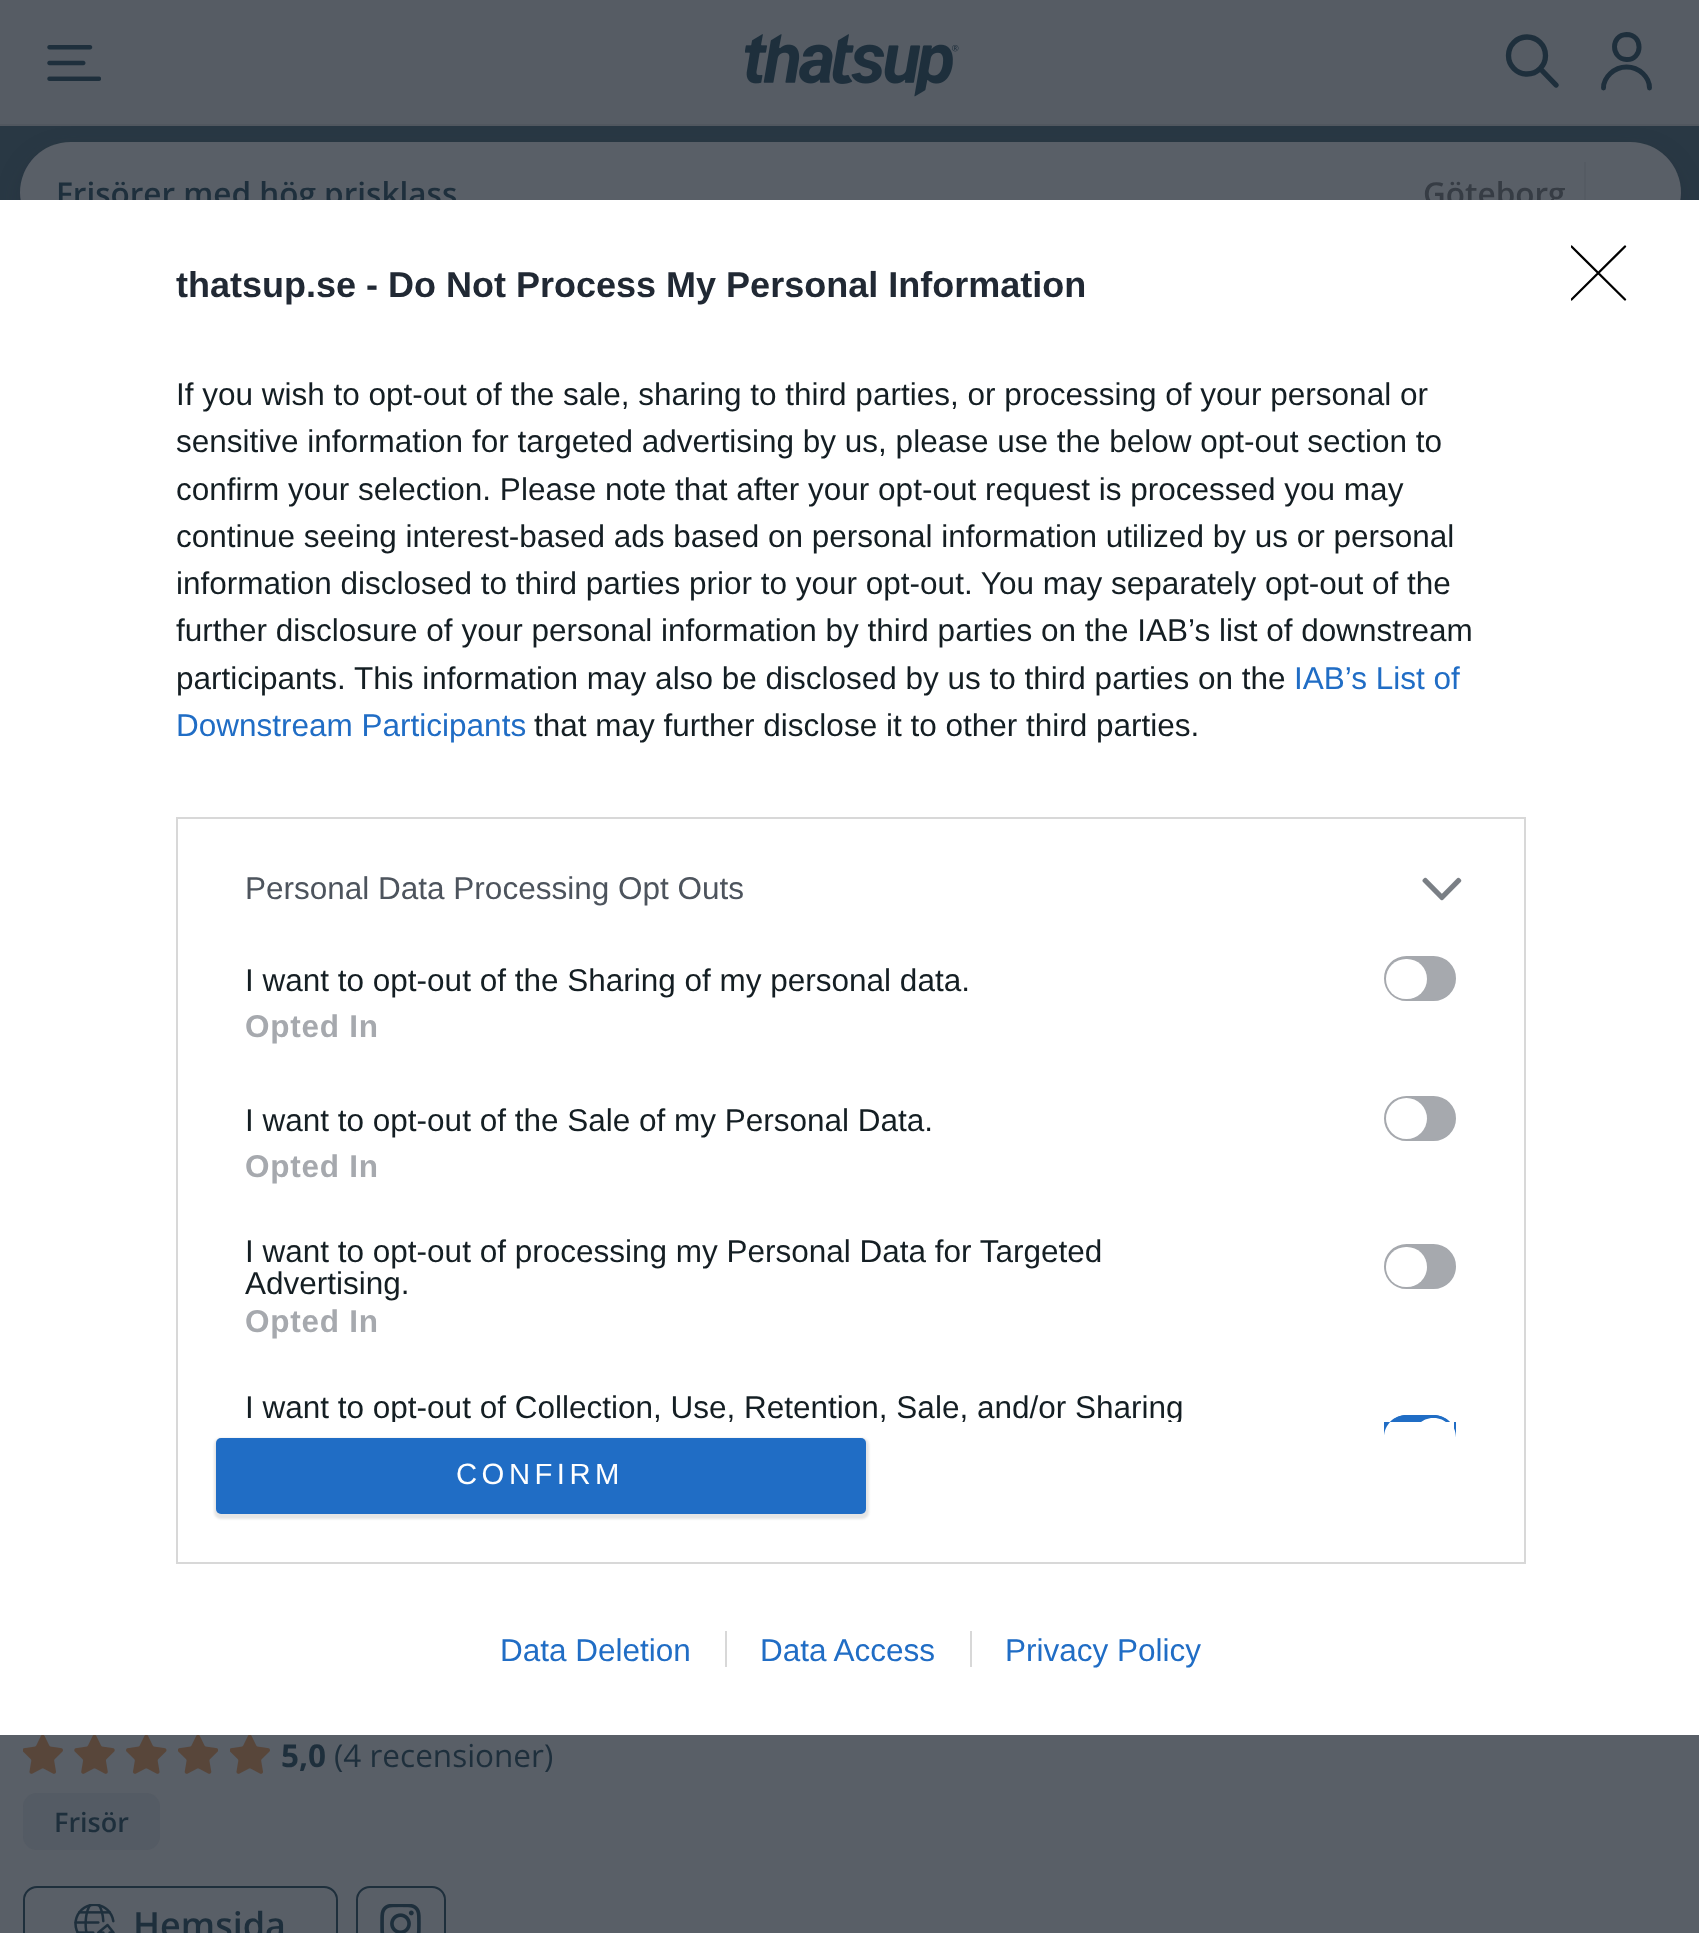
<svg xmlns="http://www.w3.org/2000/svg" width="1699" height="1933">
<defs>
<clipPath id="clip1"><rect x="200" y="842" width="1301" height="580"/></clipPath>
<clipPath id="clip2"><rect x="1571" y="245" width="56" height="57"/></clipPath>
</defs>
<rect width="100%" height="100%" fill="#565c64"/>
<rect y="126" width="1699" height="74" fill="#293844"/>
<rect x="20" y="151" width="1661" height="101" rx="50.5" fill="#191f272b" filter="blur(12.5px)"/>
<rect y="124" width="1699" height="2" fill="#51575f"/>
<image x="47" y="45" width="54" height="36" href="media/1.png"/>
<image x="745" y="34" width="214" height="63" href="media/2.png"/>
<circle cx="1527" cy="55.5" r="18.5" fill="none" stroke="#1e2f3c" stroke-width="5.3"/>
<path d="M1542 70.5l14 14.5" fill="none" stroke="#1e2f3c" stroke-width="5.3" stroke-linecap="round"/>
<path d="M1626.5 34.5c17 0 16.5 25.5 0 25c-16-1-16-24.5 0-25zm-23 53.5c0-10.5 10.5-21 23-21c13 0 23 10.5 23 21" fill="none" stroke="#1e2f3c" stroke-width="4.9" stroke-linecap="round" stroke-linejoin="round"/>
<rect x="20" y="142" width="1661" height="101" rx="50.5" fill="#595f67"/>
<text x="56" y="205" style="font-family:Open Sans;font-size:31.5px;font-weight:600;fill:#1e2f3c">Frisörer med hög prisklass</text>
<text x="1423" y="205" style="font-family:Open Sans;font-size:31.5px;font-weight:600;fill:#363c44">Göteborg</text>
<rect x="1584" y="162" width="2" height="38" fill="#555b63"/>
<rect y="1735" width="1699" height="198" fill="#595f67"/>
<image x="23" y="1735" width="40" height="39" href="media/3.png"/>
<image x="74" y="1735" width="41" height="39" href="media/4.png"/>
<image x="126" y="1735" width="41" height="39" href="media/5.png"/>
<image x="178" y="1735" width="40" height="39" href="media/6.png"/>
<image x="230" y="1735" width="40" height="39" href="media/3.png"/>
<text x="281" y="1767" style="font-family:Open Sans;font-size:31.5px;font-weight:bold;fill:#1e2f3c">5,0</text>
<text x="334" y="1767" style="font-family:Open Sans;font-size:31.5px;fill:#1e2f3c">(4 recensioner)</text>
<rect x="23" y="1793" width="137" height="57" rx="14" fill="#545b64"/>
<text x="54" y="1832" style="font-family:Open Sans;font-size:27px;font-weight:600;fill:#1e2f3c">Frisör</text>
<rect x="24" y="1887" width="313" height="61" rx="13" fill="none" stroke="#1e2f3c" stroke-width="2"/>
<image x="74" y="1904" width="41" height="29" href="media/7.png"/>
<text x="133" y="1938" style="font-family:Open Sans;font-size:36px;font-weight:600;fill:#1e2f3c">Hemsida</text>
<rect x="357" y="1887" width="88" height="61" rx="13" fill="none" stroke="#1e2f3c" stroke-width="2"/>
<image x="380" y="1904" width="41" height="29" href="media/8.png"/>
<rect y="200" width="1699" height="1535" fill="#fff"/>
<text x="176" y="297" style="font-family:Liberation Sans;font-size:36px;font-weight:bold;fill:#212934">thatsup.se - Do Not Process My Personal Information</text>
<text x="176" y="405" style="font-family:Liberation Sans;font-size:31.5px;fill:#141e23">If you wish to opt-out of the sale, sharing to third parties, or processing of your personal or</text>
<text x="176" y="452" style="font-family:Liberation Sans;font-size:31.5px;fill:#141e23">sensitive information for targeted advertising by us, please use the below opt-out section to</text>
<text x="176" y="500" style="font-family:Liberation Sans;font-size:31.5px;fill:#141e23">confirm your selection. Please note that after your opt-out request is processed you may</text>
<text x="176" y="547" style="font-family:Liberation Sans;font-size:31.5px;fill:#141e23">continue seeing interest-based ads based on personal information utilized by us or personal</text>
<text x="176" y="594" style="font-family:Liberation Sans;font-size:31.5px;fill:#141e23">information disclosed to third parties prior to your opt-out. You may separately opt-out of the</text>
<text x="176" y="641" style="font-family:Liberation Sans;font-size:31.5px;fill:#141e23">further disclosure of your personal information by third parties on the IAB’s list of downstream</text>
<text x="176" y="689" style="font-family:Liberation Sans;font-size:31.5px;fill:#141e23">participants. This information may also be disclosed by us to third parties on the</text>
<text x="1294" y="689" style="font-family:Liberation Sans;font-size:31.5px;fill:#206dc5">IAB’s List of</text>
<text x="176" y="736" style="font-family:Liberation Sans;font-size:31.5px;fill:#206dc5">Downstream Participants</text>
<text x="534" y="736" style="font-family:Liberation Sans;font-size:31.5px;fill:#141e23">that may further disclose it to other third parties.</text>
<rect x="177" y="818" width="1348" height="745" fill="none" stroke="#d8d8d8" stroke-width="2"/>
<text x="245" y="899" style="font-family:Liberation Sans;font-size:31.5px;fill:#4d545d">Personal Data Processing Opt Outs</text>
<image x="1422" y="877" width="40" height="24" href="media/9.png"/>
<text x="245" y="991" style="font-family:Liberation Sans;font-size:31.5px;fill:#141e23">I want to opt-out of the Sharing of my personal data.</text>
<rect x="1385" y="957" width="70" height="43" rx="21.5" fill="#a6a9ae" stroke="#a6a9ae" stroke-width="2"/>
<rect x="1386" y="959" width="41" height="40" rx="20" fill="#fff"/>
<text x="245" y="1037" style="font-family:Liberation Sans;font-size:31.5px;font-weight:bold;letter-spacing:0.75px;fill:#a6a9ae">Opted In</text>
<text x="245" y="1131" style="font-family:Liberation Sans;font-size:31.5px;fill:#141e23">I want to opt-out of the Sale of my Personal Data.</text>
<rect x="1385" y="1097" width="70" height="43" rx="21.5" fill="#a6a9ae" stroke="#a6a9ae" stroke-width="2"/>
<circle cx="1406.5" cy="1118.5" r="20.5" fill="#fff"/>
<text x="245" y="1177" style="font-family:Liberation Sans;font-size:31.5px;font-weight:bold;letter-spacing:0.75px;fill:#a6a9ae">Opted In</text>
<text x="245" y="1262" style="font-family:Liberation Sans;font-size:31.5px;fill:#141e23">I want to opt-out of processing my Personal Data for Targeted</text>
<text x="245" y="1294" style="font-family:Liberation Sans;font-size:31.5px;fill:#141e23">Advertising.</text>
<rect x="1385" y="1245" width="70" height="43" rx="21.5" fill="#a6a9ae" stroke="#a6a9ae" stroke-width="2"/>
<rect x="1386" y="1247" width="41" height="40" rx="20" fill="#fff"/>
<text x="245" y="1332" style="font-family:Liberation Sans;font-size:31.5px;font-weight:bold;letter-spacing:0.75px;fill:#a6a9ae">Opted In</text>
<g clip-path="url(#clip1)">
<text x="245" y="1418" style="font-family:Liberation Sans;font-size:31.5px;fill:#141e23">I want to opt-out of Collection, Use, Retention, Sale, and/or Sharing</text>
</g>
<path d="M1406.5 1415h27c12.5 0 22.5 10 22.5 22.5v-15.5h-72v15.5c0-12.5 10-22.5 22.5-22.5z" fill="#206dc5"/>
<g clip-path="url(#clip1)">
<rect x="1385" y="1416" width="70" height="43" rx="21.5" fill="none" stroke="#206dc5" stroke-width="2"/>
</g>
<path d="M1433 1418h1c11 0 20 9 20 20v-16h-41v16c0-11 9-20 20-20z" fill="#fff"/>
<rect x="214" y="1438" width="655" height="81" rx="7" fill="#0000001a" filter="blur(1px)"/>
<rect x="216" y="1438" width="650" height="76" rx="5" fill="#206dc5"/>
<text x="456" y="1484" style="font-family:Liberation Sans;font-size:29.25px;letter-spacing:4.5px;fill:#fff">CONFIRM</text>
<g clip-path="url(#clip2)">
<path d="M1571.5 246.5l53.5 53m0-53l-53.5 53" fill="none" stroke="#000" stroke-width="2.3" stroke-linecap="round" stroke-linejoin="round"/>
</g>
<text x="500" y="1661" style="font-family:Liberation Sans;font-size:31.5px;fill:#206dc5">Data Deletion</text>
<text x="760" y="1661" style="font-family:Liberation Sans;font-size:31.5px;fill:#206dc5">Data Access</text>
<rect x="725" y="1631" width="2" height="36" fill="#d8d8d8"/>
<text x="1005" y="1661" style="font-family:Liberation Sans;font-size:31.5px;fill:#206dc5">Privacy Policy</text>
<rect x="970" y="1631" width="2" height="36" fill="#d8d8d8"/>
</svg>
